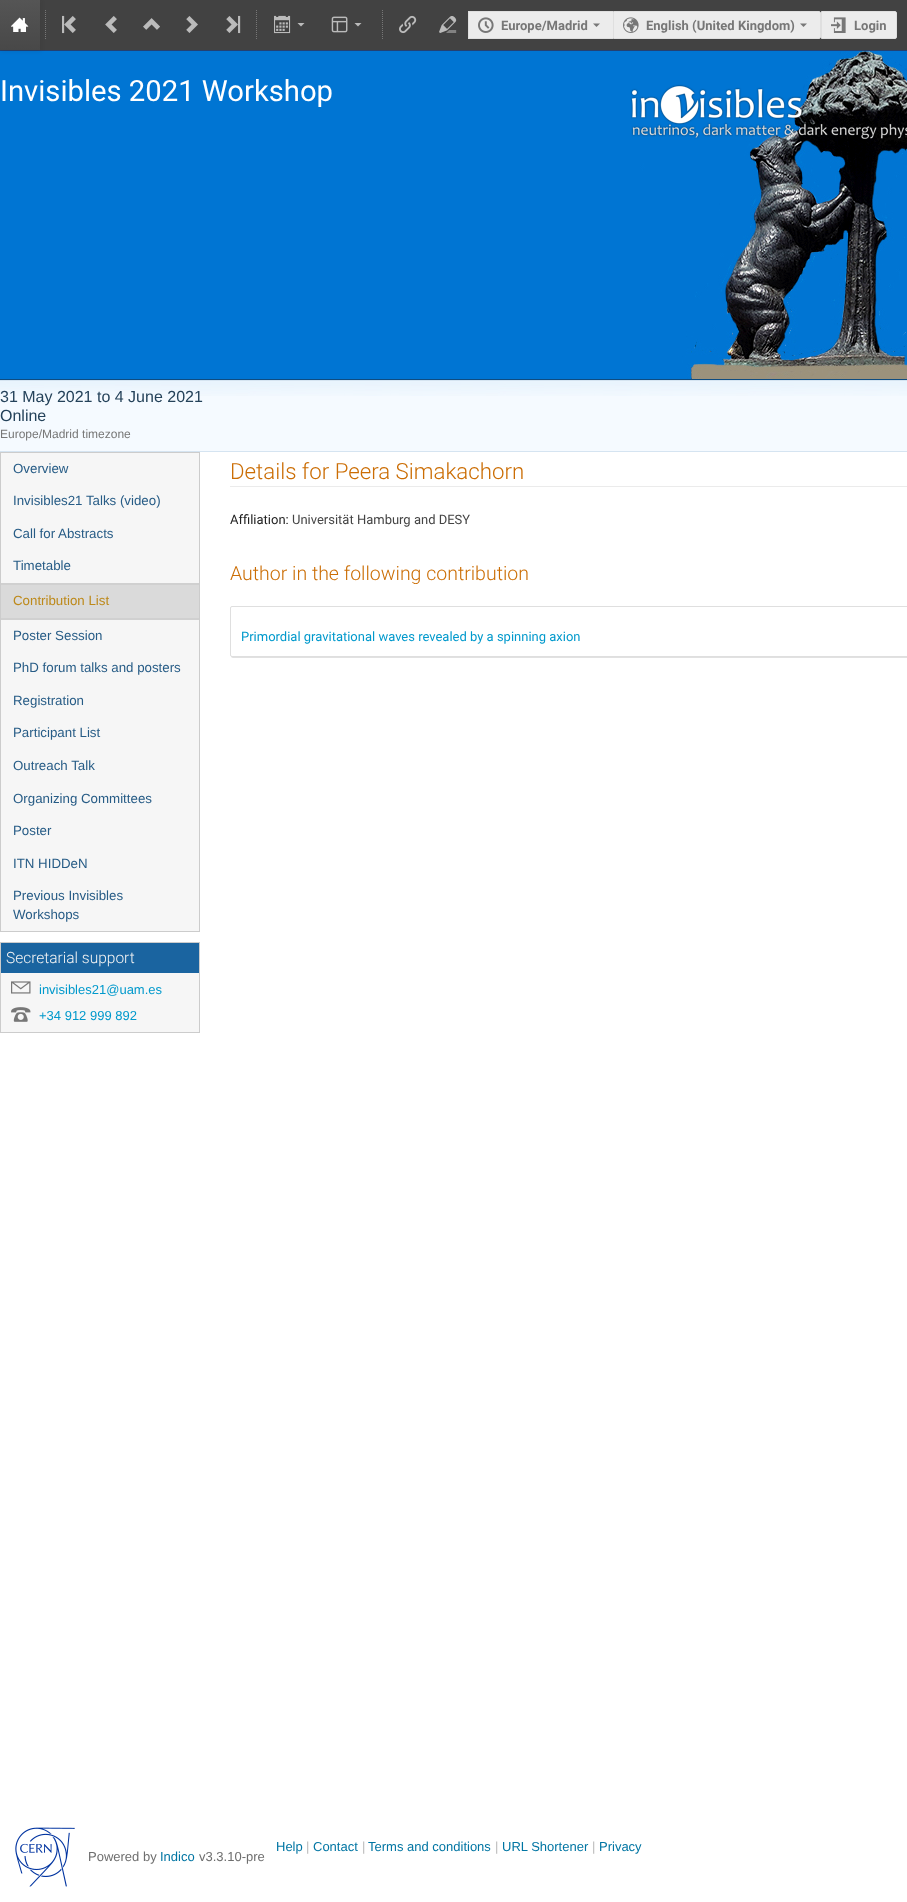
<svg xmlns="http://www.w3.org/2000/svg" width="907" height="1902">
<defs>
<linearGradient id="g1" gradientUnits="userSpaceOnUse" x1="20" y1="0" x2="20" y2="50"><stop offset="0" stop-color="#555"/><stop offset="1" stop-color="#484848"/></linearGradient>
</defs>
<rect width="100%" height="100%" fill="#fff"/>
<rect x="40" width="867" height="50" fill="#424242"/>
<image x="0" y="51" width="907" height="328" href="media/14.png"/>
<rect y="50" width="907" height="1" fill="#234173"/>
<rect x="1" y="1" width="40" height="50" fill="#1414141a" filter="blur(2px)"/>
<rect width="40" height="50" fill="url(#g1)"/>
<image x="11" y="17" width="18" height="15" href="media/1.png"/>
<path d="M45.5 10v30" fill="none" stroke="#777" stroke-dasharray="1 1"/>
<image x="62" y="15" width="14" height="19" href="media/2.png"/>
<image x="105" y="16" width="12" height="17" href="media/3.png"/>
<image x="143" y="18" width="17" height="12" href="media/4.png"/>
<image x="186" y="16" width="12" height="17" href="media/5.png"/>
<image x="226" y="15" width="15" height="19" href="media/6.png"/>
<path d="M256.5 10v30" fill="none" stroke="#777" stroke-dasharray="1 1"/>
<image x="274" y="15" width="17" height="19" href="media/7.png"/>
<path d="M297.5 23l3.5 3.5l3.5-3.5z" fill="#bbb"/>
<image x="331" y="16" width="17" height="17" href="media/8.png"/>
<path d="M354.5 23l3.5 3.5l3.5-3.5z" fill="#bbb"/>
<path d="M382.5 10v30" fill="none" stroke="#777" stroke-dasharray="1 1"/>
<image x="399" y="15" width="18" height="19" href="media/9.png"/>
<image x="439" y="16" width="18" height="17" href="media/10.png"/>
<rect x="469" y="12" width="144" height="26" fill="#ececec"/>
<rect x="468" y="11" width="145" height="1" fill="#dfdfdf"/>
<rect x="468" y="38" width="145" height="1" fill="#dfdfdf"/>
<rect x="468" y="11" width="1" height="28" fill="#dfdfdf"/>
<image x="478" y="17" width="16" height="16" href="media/11.png"/>
<text x="501" y="30" style="font-family:Roboto;font-size:13px;font-weight:bold;fill:#777">Europe/Madrid</text>
<path d="M593 23.5l3.5 3.5l3.5-3.5z" fill="#777"/>
<path d="M613.5 11.5h205.5c1 0 1.5 .5 1.5 1.5v24c0 1-.5 1.5-1.5 1.5h-205.5z" fill="#ececec" stroke="#dfdfdf"/>
<image x="623" y="17" width="16" height="16" href="media/12.png"/>
<text x="646" y="30" style="font-family:Roboto;font-size:13px;font-weight:bold;fill:#777">English (United Kingdom)</text>
<path d="M800 23.5l3.5 3.5l3.5-3.5z" fill="#777"/>
<path d="M821.5 11.5h73.5c1 0 1.5 .5 1.5 1.5v24c0 1-.5 1.5-1.5 1.5h-73.5z" fill="#ececec" stroke="#dfdfdf"/>
<image x="831" y="17" width="15" height="16" href="media/13.png"/>
<text x="854" y="30" style="font-family:Roboto;font-size:13px;font-weight:bold;fill:#777">Login</text>
<rect y="379" width="907" height="1" fill="#0f4c80"/>
<text x="0" y="101" style="font-family:Roboto;font-size:29.25px;fill:#fff">Invisibles 2021 Workshop</text>
<image x="630" y="84" width="277" height="55" href="media/15.png"/>
<rect y="396" width="907" height="55" fill="#f5faff"/>
<image x="0" y="381" width="907" height="15" href="media/16.png"/>
<rect y="380" width="907" height="1" fill="#d5e4f1"/>
<rect y="451" width="907" height="1" fill="#d5e4f1"/>
<text x="0" y="402" style="font-family:Liberation Sans;font-size:16px;fill:#24425a">31 May 2021 to 4 June 2021</text>
<text x="0" y="421" style="font-family:Liberation Sans;font-size:16px;fill:#24425a">Online</text>
<text x="0" y="438" style="font-family:Liberation Sans;font-size:12px;fill:#777">Europe/Madrid timezone</text>
<rect x="0.5" y="452.5" width="199" height="479" fill="#f6f6f6" stroke="#ccc"/>
<text x="13" y="473" style="font-family:Liberation Sans;font-size:13.3px;fill:#275c86">Overview</text>
<text x="13" y="505" style="font-family:Liberation Sans;font-size:13.3px;fill:#275c86">Invisibles21 Talks (video)</text>
<text x="13" y="538" style="font-family:Liberation Sans;font-size:13.3px;fill:#275c86">Call for Abstracts</text>
<text x="13" y="570" style="font-family:Liberation Sans;font-size:13.3px;fill:#275c86">Timetable</text>
<rect x="1" y="585" width="198" height="33" fill="#dadada"/>
<rect x="1" y="583" width="198" height="2" fill="#d0d0d0"/>
<rect x="1" y="618" width="198" height="2" fill="#d0d0d0"/>
<text x="13" y="605" style="font-family:Liberation Sans;font-size:13.3px;fill:#bd891a">Contribution List</text>
<text x="13" y="640" style="font-family:Liberation Sans;font-size:13.3px;fill:#275c86">Poster Session</text>
<text x="13" y="672" style="font-family:Liberation Sans;font-size:13.3px;fill:#275c86">PhD forum talks and posters</text>
<text x="13" y="705" style="font-family:Liberation Sans;font-size:13.3px;fill:#275c86">Registration</text>
<text x="13" y="737" style="font-family:Liberation Sans;font-size:13.3px;fill:#275c86">Participant List</text>
<text x="13" y="770" style="font-family:Liberation Sans;font-size:13.3px;fill:#275c86">Outreach Talk</text>
<text x="13" y="803" style="font-family:Liberation Sans;font-size:13.3px;fill:#275c86">Organizing Committees</text>
<text x="13" y="835" style="font-family:Liberation Sans;font-size:13.3px;fill:#275c86">Poster</text>
<text x="13" y="868" style="font-family:Liberation Sans;font-size:13.3px;fill:#275c86">ITN HIDDeN</text>
<text x="13" y="900" style="font-family:Liberation Sans;font-size:13.3px;fill:#275c86">Previous Invisibles</text>
<text x="13" y="919" style="font-family:Liberation Sans;font-size:13.3px;fill:#275c86">Workshops</text>
<rect x="1" y="973" width="198" height="59" fill="#f6f6f6"/>
<rect x="0.5" y="942.5" width="199" height="90" fill="none" stroke="#ccc"/>
<rect x="1" y="943" width="198" height="30" fill="#1a64a0"/>
<text x="6" y="963" style="font-family:Roboto;font-size:15.5px;font-weight:300;fill:#f3f3f3">Secretarial support</text>
<image x="11" y="981" width="20" height="13" href="media/17.png"/>
<text x="39" y="994" style="font-family:'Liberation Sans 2';font-size:13px;fill:#09c">invisibles21@uam.es</text>
<image x="11" y="1007" width="20" height="15" href="media/18.png"/>
<text x="39" y="1020" style="font-family:'Liberation Sans 2';font-size:13px;fill:#09c">+34 912 999 892</text>
<rect x="230" y="486" width="677" height="1" fill="#ebebeb"/>
<text x="230" y="479" style="font-family:Roboto;font-size:22.25px;font-weight:300;fill:#cb6d04">Details for Peera Simakachorn</text>
<text x="230" y="524" style="font-family:Roboto;font-size:13px;fill:#212121">Affiliation:</text>
<text x="292" y="524" style="font-family:Roboto;font-size:13px;fill:#444">Universität Hamburg and DESY</text>
<text x="230" y="580" style="font-family:Roboto;font-size:19.5px;font-weight:300;fill:#cb6d04">Author in the following contribution</text>
<rect x="231" y="607" width="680" height="51" rx="2" fill="#e1e1e1" filter="blur(0.5px)"/>
<rect x="230.5" y="606.5" width="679" height="50" rx="1.5" fill="#fff" stroke="#dfdfdf"/>
<text x="241" y="641" style="font-family:Roboto;font-size:13px;fill:#09c">Primordial gravitational waves revealed by a spinning axion</text>
<text x="276" y="1851" style="font-family:'Liberation Sans 2';font-size:13px;fill:#0075a3">Help</text>
<text x="306" y="1851" style="font-family:'Liberation Sans 2';font-size:13px;fill:#bbb">|</text>
<text x="313" y="1851" style="font-family:'Liberation Sans 2';font-size:13px;fill:#0075a3">Contact</text>
<text x="362" y="1851" style="font-family:'Liberation Sans 2';font-size:13px;fill:#bbb">|</text>
<text x="368" y="1851" style="font-family:'Liberation Sans 2';font-size:13px;fill:#0075a3">Terms and conditions</text>
<text x="495" y="1851" style="font-family:'Liberation Sans 2';font-size:13px;fill:#bbb">|</text>
<text x="502" y="1851" style="font-family:'Liberation Sans 2';font-size:13px;fill:#0075a3">URL Shortener</text>
<text x="592" y="1851" style="font-family:'Liberation Sans 2';font-size:13px;fill:#bbb">|</text>
<text x="599" y="1851" style="font-family:'Liberation Sans 2';font-size:13px;fill:#0075a3">Privacy</text>
<image x="15" y="1827" width="60" height="60" href="media/19.png"/>
<text x="88" y="1861" style="font-family:'Liberation Sans 2';font-size:13px;fill:#6e6e6e">Powered by</text>
<text x="160" y="1861" style="font-family:'Liberation Sans 2';font-size:13px;fill:#0075a3">Indico</text>
<text x="199" y="1861" style="font-family:'Liberation Sans 2';font-size:13px;fill:#6e6e6e">v3.3.10-pre</text>
</svg>
